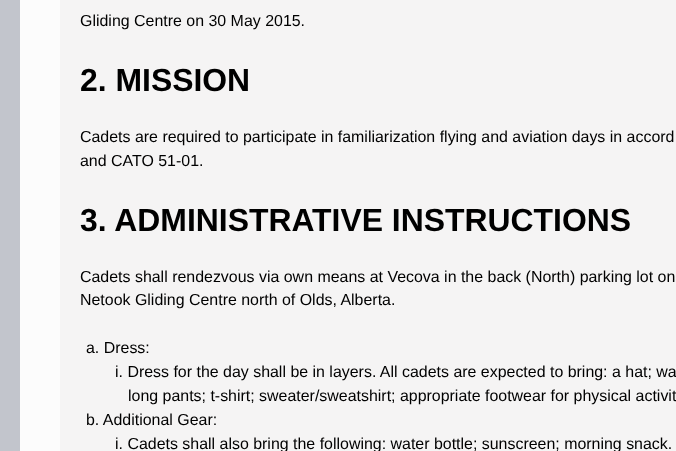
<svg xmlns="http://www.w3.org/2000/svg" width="676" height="451">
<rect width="100%" height="100%" fill="#c2c5cc"/>
<rect x="20" width="40" height="451" fill="#fcfcfc"/>
<rect x="60" width="616" height="451" fill="#f5f4f4"/>
<text x="80" y="26" style="font-family:Liberation Sans;font-size:15.95px;fill:#000">Gliding Centre on 30 May 2015.</text>
<text x="80" y="91" style="font-family:Liberation Sans;font-size:31.9px;font-weight:bold;fill:#000">2. MISSION</text>
<text x="80" y="142" style="font-family:Liberation Sans;font-size:15.95px;fill:#000">Cadets are required to participate in familiarization flying and aviation days in accord</text>
<text x="80" y="166" style="font-family:Liberation Sans;font-size:15.95px;fill:#000">and CATO 51-01.</text>
<text x="80" y="231" style="font-family:Liberation Sans;font-size:31.9px;font-weight:bold;fill:#000">3. ADMINISTRATIVE INSTRUCTIONS</text>
<text x="80" y="282" style="font-family:Liberation Sans;font-size:15.95px;fill:#000">Cadets shall rendezvous via own means at Vecova in the back (North) parking lot on</text>
<text x="80" y="305" style="font-family:Liberation Sans;font-size:15.95px;fill:#000">Netook Gliding Centre north of Olds, Alberta.</text>
<text x="86" y="353" style="font-family:Liberation Sans;font-size:15.95px;fill:#000">a. Dress:</text>
<text x="115" y="377" style="font-family:Liberation Sans;font-size:15.95px;fill:#000">i. Dress for the day shall be in layers. All cadets are expected to bring: a hat; wa</text>
<text x="128" y="401" style="font-family:Liberation Sans;font-size:15.95px;fill:#000">long pants; t-shirt; sweater/sweatshirt; appropriate footwear for physical activit</text>
<text x="86" y="425" style="font-family:Liberation Sans;font-size:15.95px;fill:#000">b. Additional Gear:</text>
<text x="115" y="449" style="font-family:Liberation Sans;font-size:15.95px;fill:#000">i. Cadets shall also bring the following: water bottle; sunscreen; morning snack.</text>
</svg>
